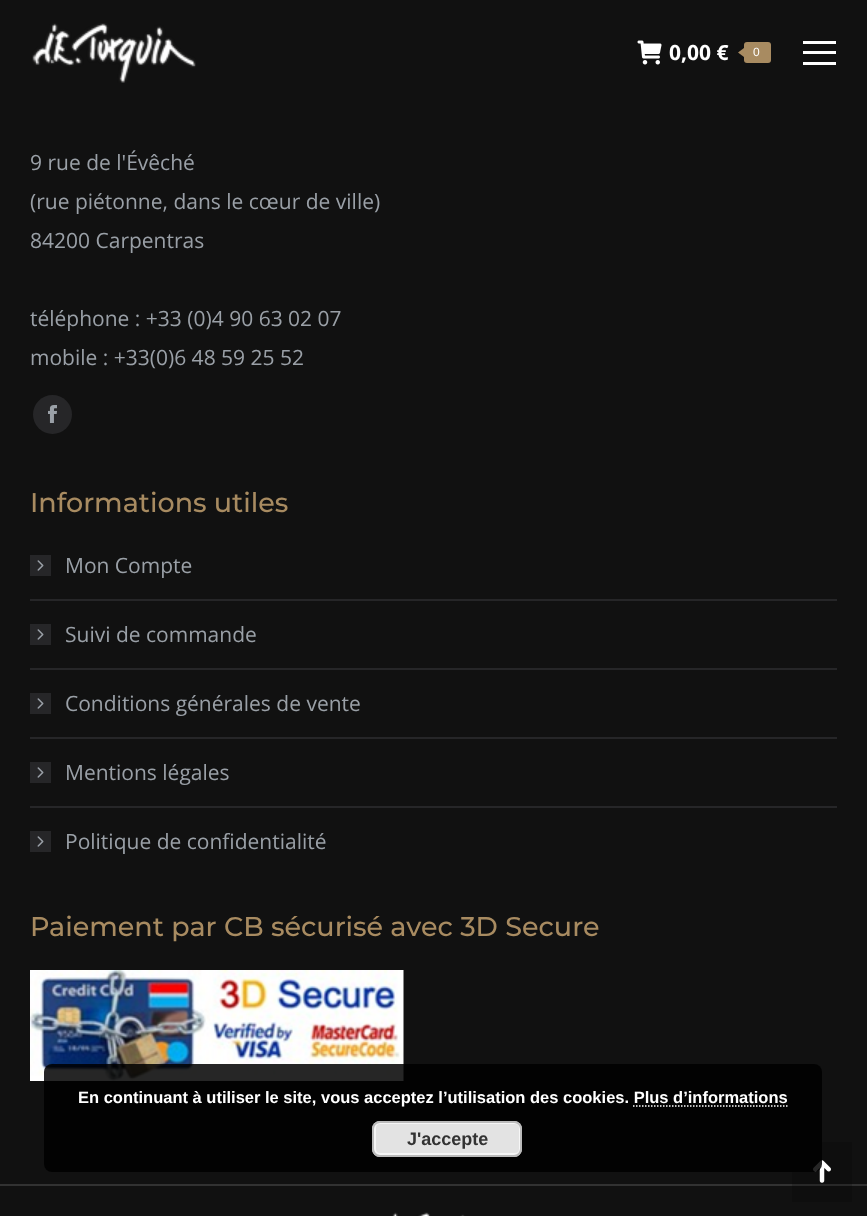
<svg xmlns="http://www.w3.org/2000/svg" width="867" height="1216">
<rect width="100%" height="100%" fill="#111"/>
<image x="32" y="23" width="164" height="60" href="media/1.png"/>
<image x="637" y="40" width="25" height="25" href="media/2.png"/>
<text x="669" y="60" style="font-family:Open Sans;font-size:21px;font-weight:bold;fill:#fff">0,00 €</text>
<rect x="744" y="42" width="27" height="21" rx="3" fill="#a88b61"/>
<path d="M744 48v9l-6-4.5z" fill="#a88b61"/>
<text x="753" y="56" style="font-family:Liberation Sans;font-size:12px;fill:#fff">0</text>
<rect x="803" y="41" width="33" height="3" fill="#fff"/>
<rect x="803" y="51" width="33" height="3" fill="#fff"/>
<rect x="803" y="62" width="33" height="3" fill="#fff"/>
<rect x="792" y="1142" width="60" height="60" fill="#0e0e0e"/>
<text x="30" y="170" style="font-family:Open Sans;font-size:21px;fill:#9aa0a7">9 rue de l'Évêché</text>
<text x="30" y="209" style="font-family:Open Sans;font-size:21px;fill:#9aa0a7">(rue piétonne, dans le cœur de ville)</text>
<text x="30" y="248" style="font-family:Open Sans;font-size:21px;fill:#9aa0a7">84200 Carpentras</text>
<text x="30" y="326" style="font-family:Open Sans;font-size:21px;fill:#9aa0a7">téléphone : +33 (0)4 90 63 02 07</text>
<text x="30" y="365" style="font-family:Open Sans;font-size:21px;fill:#9aa0a7">mobile : +33(0)6 48 59 25 52</text>
<circle cx="52.5" cy="414.5" r="19.5" fill="#262628"/>
<image x="48" y="405" width="9" height="18" href="media/3.png"/>
<text x="30" y="512" style="font-family:Montserrat;font-size:27px;font-weight:500;fill:#a88b61">Informations utiles</text>
<rect x="30" y="555" width="21" height="21" fill="#262628"/>
<text x="65" y="573" style="font-family:Open Sans;font-size:21px;fill:#9aa0a7">Mon Compte</text>
<image x="37" y="560" width="7" height="11" href="media/4.png"/>
<rect x="30" y="599" width="807" height="2" fill="#262628"/>
<rect x="30" y="624" width="21" height="21" fill="#262628"/>
<text x="65" y="642" style="font-family:Open Sans;font-size:21px;fill:#9aa0a7">Suivi de commande</text>
<image x="37" y="629" width="7" height="11" href="media/4.png"/>
<rect x="30" y="668" width="807" height="2" fill="#262628"/>
<rect x="30" y="693" width="21" height="21" fill="#262628"/>
<text x="65" y="711" style="font-family:Open Sans;font-size:21px;fill:#9aa0a7">Conditions générales de vente</text>
<image x="37" y="698" width="7" height="11" href="media/4.png"/>
<rect x="30" y="737" width="807" height="2" fill="#262628"/>
<rect x="30" y="762" width="21" height="21" fill="#262628"/>
<text x="65" y="780" style="font-family:Open Sans;font-size:21px;fill:#9aa0a7">Mentions légales</text>
<image x="37" y="767" width="7" height="11" href="media/4.png"/>
<rect x="30" y="806" width="807" height="2" fill="#262628"/>
<rect x="30" y="831" width="21" height="21" fill="#262628"/>
<text x="65" y="849" style="font-family:Open Sans;font-size:21px;fill:#9aa0a7">Politique de confidentialité</text>
<image x="37" y="836" width="7" height="11" href="media/4.png"/>
<text x="30" y="936" style="font-family:Montserrat;font-size:27px;font-weight:500;fill:#a88b61">Paiement par CB sécurisé avec 3D Secure</text>
<image x="30" y="970" width="374" height="111" href="media/5.png"/>
<rect y="1184" width="867" height="2" fill="#323232"/>
<rect x="792" y="1184" width="60" height="2" fill="#282828"/>
<image x="392" y="1212" width="73" height="4" href="media/6.png"/>
<image x="813" y="1160" width="18" height="23" href="media/7.png"/>
<rect x="44" y="1064" width="778" height="108" rx="8" fill="#000000d9"/>
<text x="78" y="1103" style="font-family:Liberation Sans;font-size:16.5px;font-weight:bold;fill:#fff">En continuant à utiliser le site, vous acceptez l’utilisation des cookies. Plus d’informations</text>
<path d="M633 1106h154.5" fill="none" stroke="#fff" stroke-width="1.5" stroke-dasharray="1.5 1.5"/>
<rect x="372" y="1121" width="150" height="36" rx="8" fill="#e3e3e3"/>
<rect x="375" y="1123" width="145" height="31" rx="5" fill="none" stroke="#f6f6f6" stroke-width="2"/>
<rect x="373" y="1122" width="148" height="34" rx="7" fill="none" stroke="#bbb" stroke-width="2"/>
<text x="407" y="1145" style="font-family:Liberation Sans;font-size:18px;font-weight:bold;fill:#333">J'accepte</text>
</svg>
